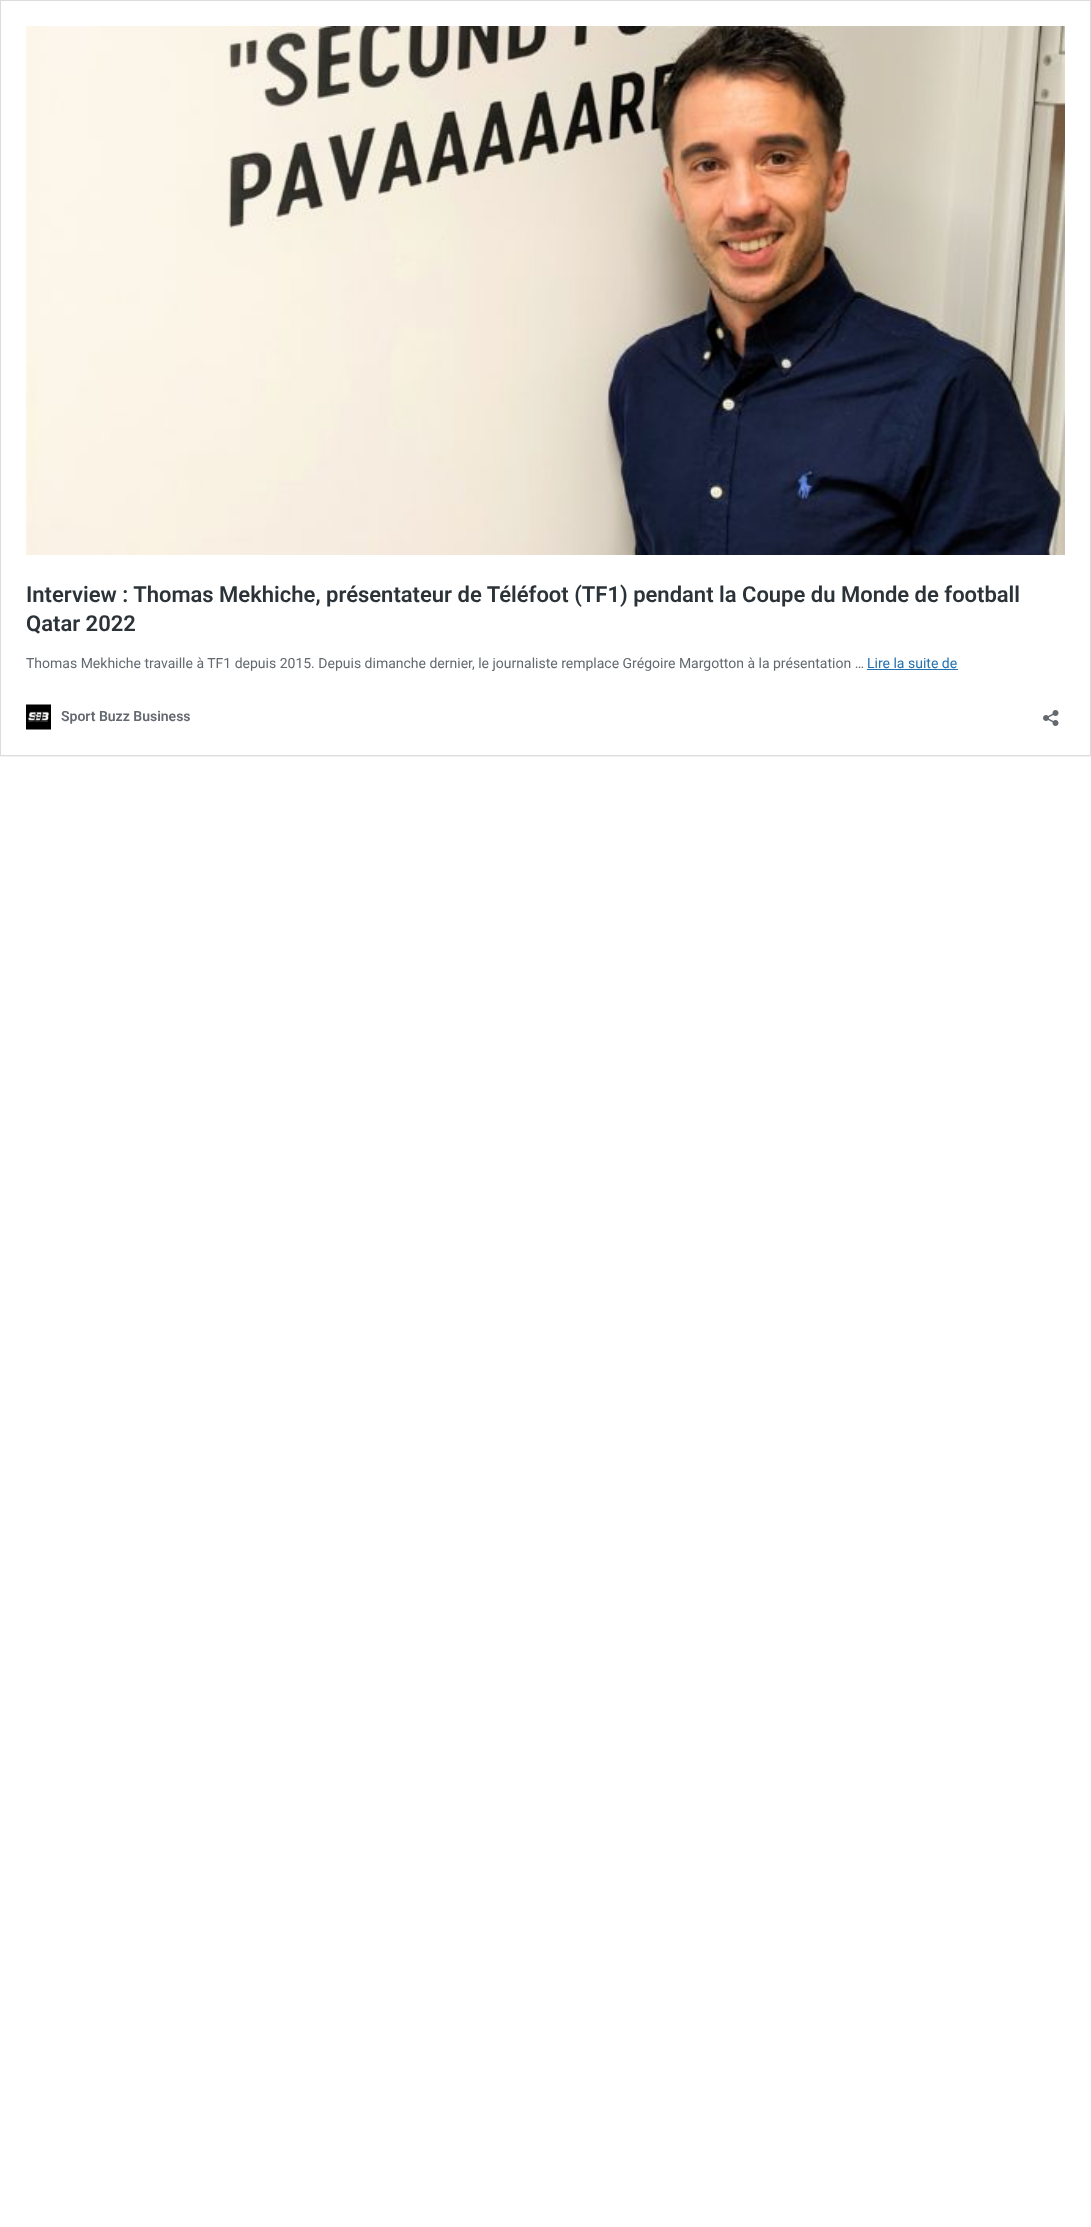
<svg xmlns="http://www.w3.org/2000/svg" width="1091" height="2227">
<defs>
<clipPath id="clip1"><rect x="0" y="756" width="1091" height="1"/></clipPath>
</defs>
<rect width="100%" height="100%" fill="#fff"/>
<g clip-path="url(#clip1)">
<rect y="1" width="1091" height="756" fill="#0000000d" filter="blur(0.5px)"/>
</g>
<rect x="0.5" y="0.5" width="1090" height="755" fill="none" stroke="#dcdcde"/>
<image x="26" y="26" width="1039" height="529" href="media/1.png"/>
<text x="26" y="602" style="font-family:Roboto;font-size:22px;font-weight:600;fill:#2c3338">Interview : Thomas Mekhiche, présentateur de Téléfoot (TF1) pendant la Coupe du Monde de football</text>
<text x="26" y="631" style="font-family:Roboto;font-size:22px;font-weight:600;fill:#2c3338">Qatar 2022</text>
<text x="26" y="668" style="font-family:Roboto;font-size:14px;fill:#646970">Thomas Mekhiche travaille à TF1 depuis 2015. Depuis dimanche dernier, le journaliste remplace Grégoire Margotton à la présentation …</text>
<text x="867" y="668" style="font-family:Roboto;font-size:14px;fill:#2271b1">Lire la suite de</text>
<rect x="867" y="669" width="91" height="1" fill="#2271b1"/>
<image x="26" y="704" width="25" height="26" href="media/2.png"/>
<text x="61" y="721" style="font-family:Roboto;font-size:14px;font-weight:600;fill:#646970">Sport Buzz Business</text>
<image x="1043" y="710" width="16" height="16" href="media/3.png"/>
</svg>
